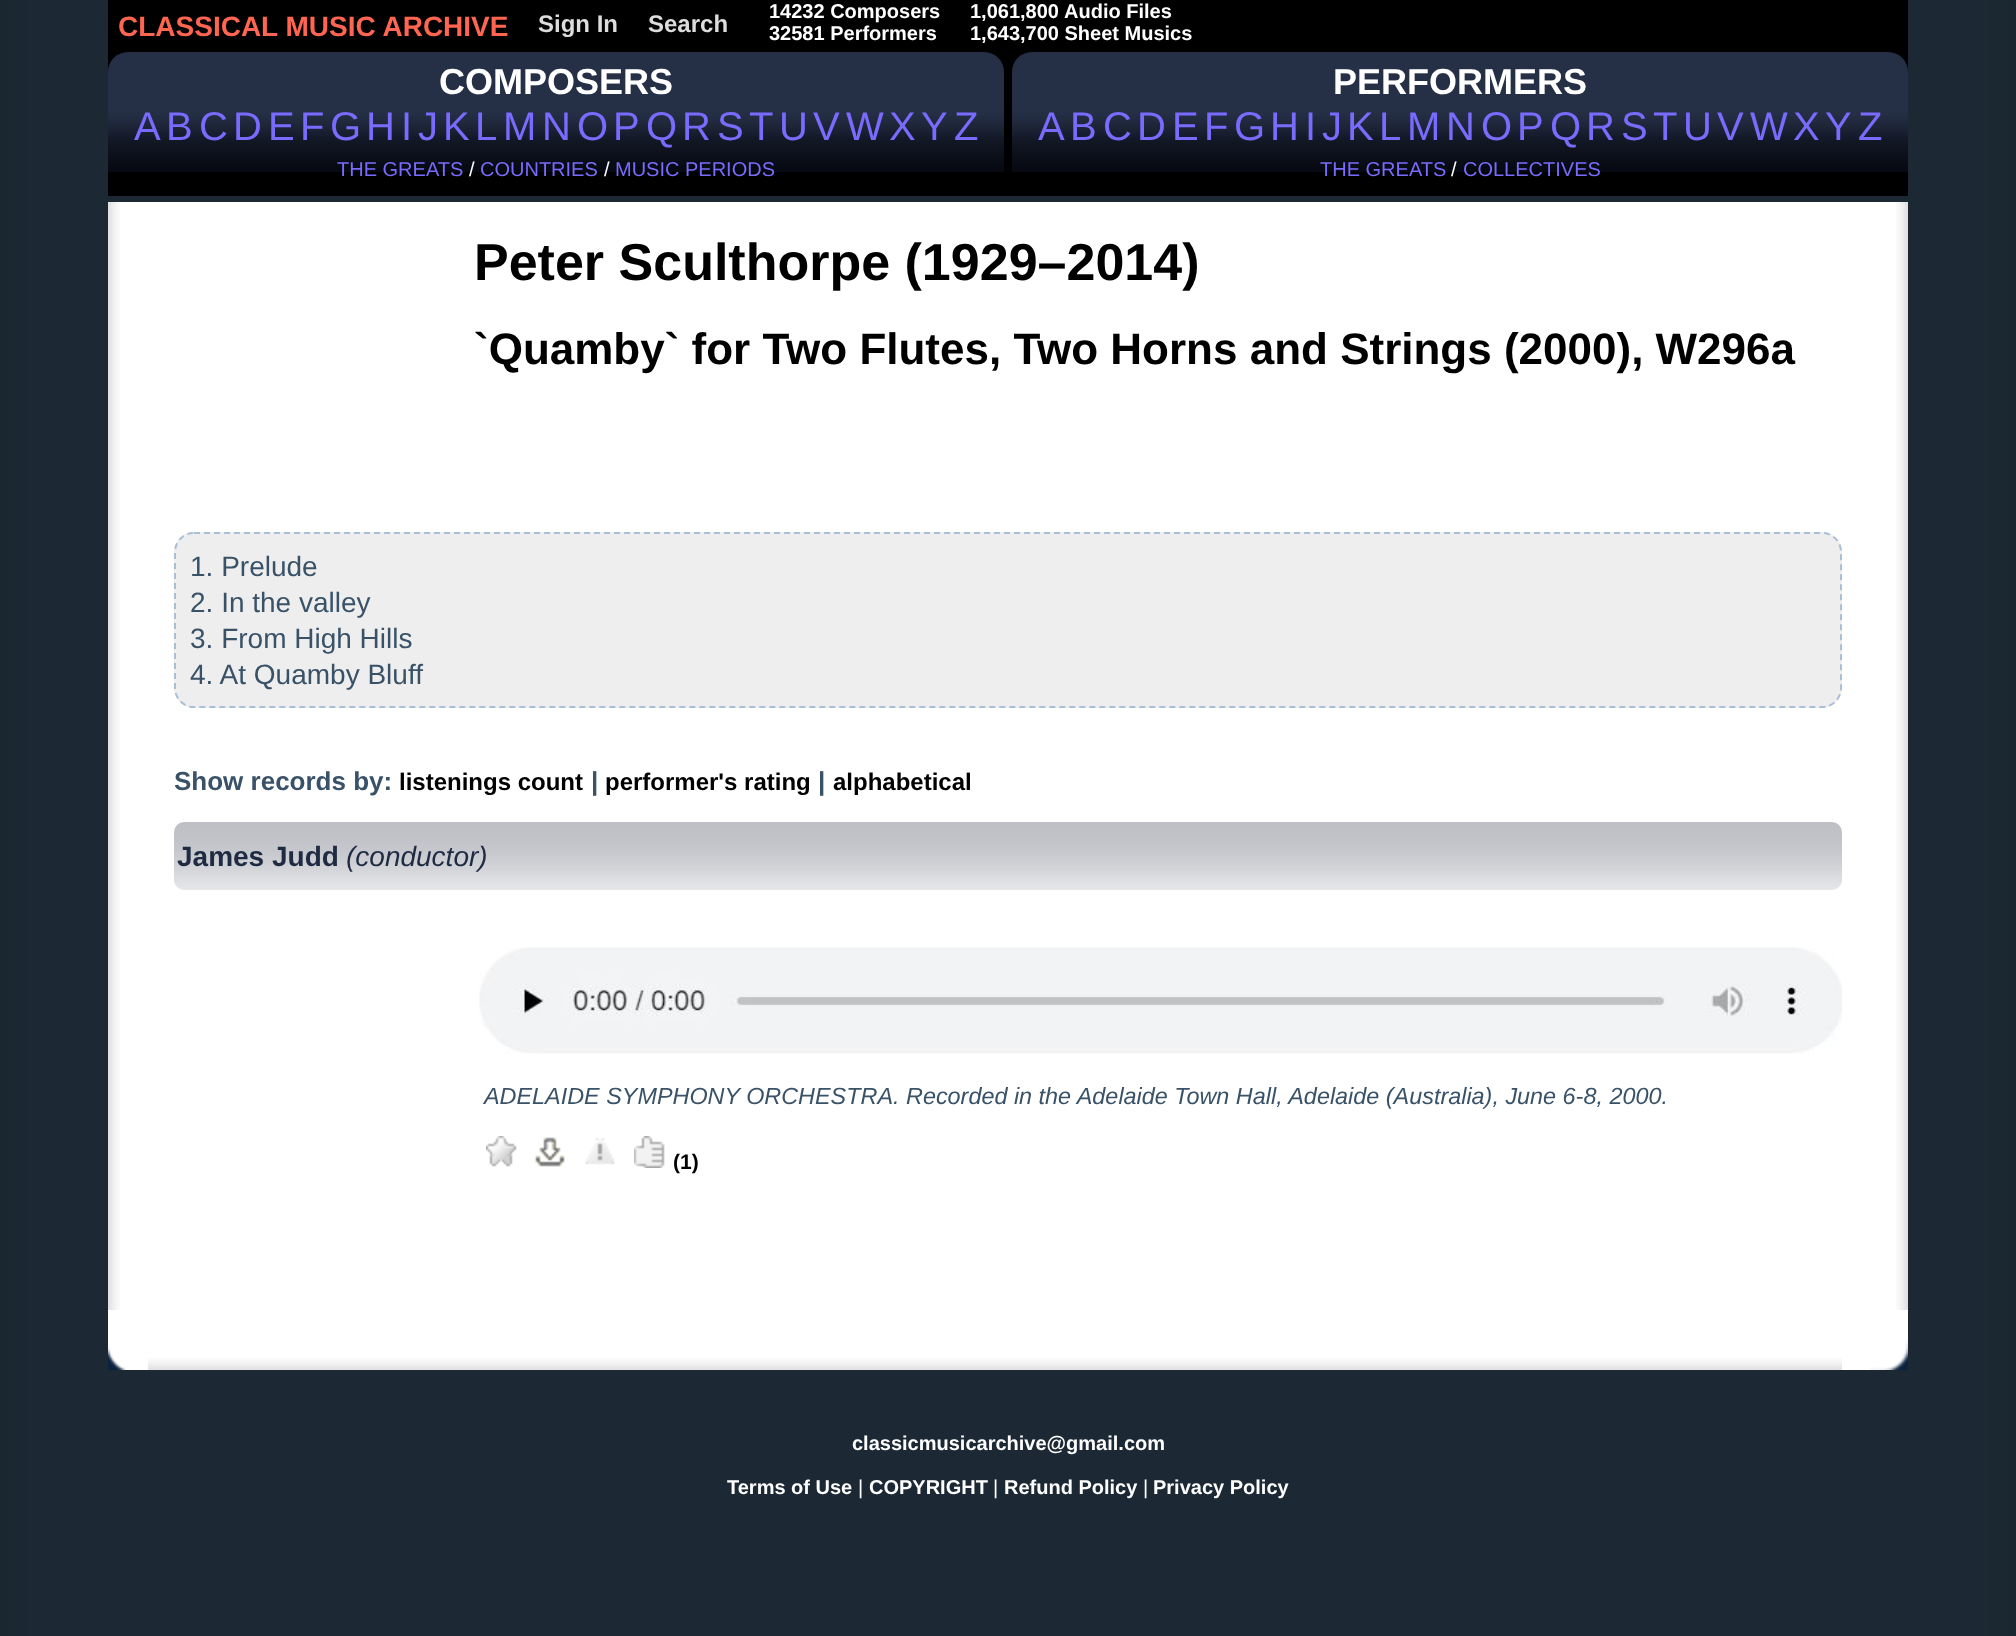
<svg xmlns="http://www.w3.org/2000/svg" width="2016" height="1636">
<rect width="100%" height="100%" fill="#fff"/>
<image x="0" y="0" width="2016" height="1636" href="media/1.png"/>
<rect x="108" width="1800" height="196" fill="#000"/>
<text x="118" y="36" style="font-family:Liberation Sans;font-size:28px;font-weight:bold;fill:#ff6550">CLASSICAL MUSIC ARCHIVE</text>
<text x="538" y="32" style="font-family:Liberation Sans;font-size:24px;font-weight:bold;fill:#ddd">Sign In</text>
<text x="648" y="32" style="font-family:Liberation Sans;font-size:24px;font-weight:bold;fill:#ddd">Search</text>
<text x="769" y="18" style="font-family:Liberation Sans;font-size:20px;font-weight:bold;fill:#fff">14232 Composers</text>
<text x="769" y="40" style="font-family:Liberation Sans;font-size:20px;font-weight:bold;fill:#fff">32581 Performers</text>
<text x="970" y="18" style="font-family:Liberation Sans;font-size:20px;font-weight:bold;fill:#fff">1,061,800</text>
<text x="1064" y="18" style="font-family:Liberation Sans;font-size:20px;font-weight:bold;fill:#fff">Audio Files</text>
<text x="970" y="40" style="font-family:Liberation Sans;font-size:20px;font-weight:bold;fill:#fff">1,643,700 Sheet Musics</text>
<image x="108" y="52" width="896" height="120" href="media/2.png"/>
<text x="439" y="94" style="font-family:Liberation Sans;font-size:36px;font-weight:bold;fill:#fff">COMPOSERS</text>
<text x="134" y="140" style="font-family:Liberation Sans;font-size:40px;fill:#796bfd">A</text>
<text x="166" y="140" style="font-family:Liberation Sans;font-size:40px;fill:#796bfd">B</text>
<text x="199" y="140" style="font-family:Liberation Sans;font-size:40px;fill:#796bfd">C</text>
<text x="233" y="140" style="font-family:Liberation Sans;font-size:40px;fill:#796bfd">D</text>
<text x="268" y="140" style="font-family:Liberation Sans;font-size:40px;fill:#796bfd">E</text>
<text x="300" y="140" style="font-family:Liberation Sans;font-size:40px;fill:#796bfd">F</text>
<text x="330" y="140" style="font-family:Liberation Sans;font-size:40px;fill:#796bfd">G</text>
<text x="366" y="140" style="font-family:Liberation Sans;font-size:40px;fill:#796bfd">H</text>
<text x="401" y="140" style="font-family:Liberation Sans;font-size:40px;fill:#796bfd">I</text>
<text x="418" y="140" style="font-family:Liberation Sans;font-size:40px;fill:#796bfd">J</text>
<text x="443" y="140" style="font-family:Liberation Sans;font-size:40px;fill:#796bfd">K</text>
<text x="475" y="140" style="font-family:Liberation Sans;font-size:40px;fill:#796bfd">L</text>
<text x="503" y="140" style="font-family:Liberation Sans;font-size:40px;fill:#796bfd">M</text>
<text x="542" y="140" style="font-family:Liberation Sans;font-size:40px;fill:#796bfd">N</text>
<text x="577" y="140" style="font-family:Liberation Sans;font-size:40px;fill:#796bfd">O</text>
<text x="613" y="140" style="font-family:Liberation Sans;font-size:40px;fill:#796bfd">P</text>
<text x="646" y="140" style="font-family:Liberation Sans;font-size:40px;fill:#796bfd">Q</text>
<text x="682" y="140" style="font-family:Liberation Sans;font-size:40px;fill:#796bfd">R</text>
<text x="717" y="140" style="font-family:Liberation Sans;font-size:40px;fill:#796bfd">S</text>
<text x="749" y="140" style="font-family:Liberation Sans;font-size:40px;fill:#796bfd">T</text>
<text x="779" y="140" style="font-family:Liberation Sans;font-size:40px;fill:#796bfd">U</text>
<text x="813" y="140" style="font-family:Liberation Sans;font-size:40px;fill:#796bfd">V</text>
<text x="846" y="140" style="font-family:Liberation Sans;font-size:40px;fill:#796bfd">W</text>
<text x="889" y="140" style="font-family:Liberation Sans;font-size:40px;fill:#796bfd">X</text>
<text x="921" y="140" style="font-family:Liberation Sans;font-size:40px;fill:#796bfd">Y</text>
<text x="954" y="140" style="font-family:Liberation Sans;font-size:40px;fill:#796bfd">Z</text>
<text x="337" y="176" style="font-family:Liberation Sans;font-size:20px;fill:#796bfd">THE GREATS</text>
<text x="469" y="176" style="font-family:Liberation Sans;font-size:20px;fill:#fff">/</text>
<text x="480" y="176" style="font-family:Liberation Sans;font-size:20px;fill:#796bfd">COUNTRIES</text>
<text x="604" y="176" style="font-family:Liberation Sans;font-size:20px;fill:#fff">/</text>
<text x="615" y="176" style="font-family:Liberation Sans;font-size:20px;fill:#796bfd">MUSIC PERIODS</text>
<image x="1012" y="52" width="896" height="120" href="media/3.png"/>
<text x="1333" y="94" style="font-family:Liberation Sans;font-size:36px;font-weight:bold;fill:#fff">PERFORMERS</text>
<text x="1038" y="140" style="font-family:Liberation Sans;font-size:40px;fill:#796bfd">A</text>
<text x="1070" y="140" style="font-family:Liberation Sans;font-size:40px;fill:#796bfd">B</text>
<text x="1103" y="140" style="font-family:Liberation Sans;font-size:40px;fill:#796bfd">C</text>
<text x="1137" y="140" style="font-family:Liberation Sans;font-size:40px;fill:#796bfd">D</text>
<text x="1172" y="140" style="font-family:Liberation Sans;font-size:40px;fill:#796bfd">E</text>
<text x="1204" y="140" style="font-family:Liberation Sans;font-size:40px;fill:#796bfd">F</text>
<text x="1234" y="140" style="font-family:Liberation Sans;font-size:40px;fill:#796bfd">G</text>
<text x="1270" y="140" style="font-family:Liberation Sans;font-size:40px;fill:#796bfd">H</text>
<text x="1305" y="140" style="font-family:Liberation Sans;font-size:40px;fill:#796bfd">I</text>
<text x="1322" y="140" style="font-family:Liberation Sans;font-size:40px;fill:#796bfd">J</text>
<text x="1347" y="140" style="font-family:Liberation Sans;font-size:40px;fill:#796bfd">K</text>
<text x="1379" y="140" style="font-family:Liberation Sans;font-size:40px;fill:#796bfd">L</text>
<text x="1407" y="140" style="font-family:Liberation Sans;font-size:40px;fill:#796bfd">M</text>
<text x="1446" y="140" style="font-family:Liberation Sans;font-size:40px;fill:#796bfd">N</text>
<text x="1481" y="140" style="font-family:Liberation Sans;font-size:40px;fill:#796bfd">O</text>
<text x="1517" y="140" style="font-family:Liberation Sans;font-size:40px;fill:#796bfd">P</text>
<text x="1550" y="140" style="font-family:Liberation Sans;font-size:40px;fill:#796bfd">Q</text>
<text x="1586" y="140" style="font-family:Liberation Sans;font-size:40px;fill:#796bfd">R</text>
<text x="1621" y="140" style="font-family:Liberation Sans;font-size:40px;fill:#796bfd">S</text>
<text x="1653" y="140" style="font-family:Liberation Sans;font-size:40px;fill:#796bfd">T</text>
<text x="1683" y="140" style="font-family:Liberation Sans;font-size:40px;fill:#796bfd">U</text>
<text x="1717" y="140" style="font-family:Liberation Sans;font-size:40px;fill:#796bfd">V</text>
<text x="1750" y="140" style="font-family:Liberation Sans;font-size:40px;fill:#796bfd">W</text>
<text x="1793" y="140" style="font-family:Liberation Sans;font-size:40px;fill:#796bfd">X</text>
<text x="1825" y="140" style="font-family:Liberation Sans;font-size:40px;fill:#796bfd">Y</text>
<text x="1858" y="140" style="font-family:Liberation Sans;font-size:40px;fill:#796bfd">Z</text>
<text x="1320" y="176" style="font-family:Liberation Sans;font-size:20px;fill:#796bfd">THE GREATS</text>
<text x="1451" y="176" style="font-family:Liberation Sans;font-size:20px;fill:#fff">/</text>
<text x="1463" y="176" style="font-family:Liberation Sans;font-size:20px;fill:#796bfd">COLLECTIVES</text>
<rect x="108" y="202" width="1800" height="1168" fill="#fff"/>
<image x="108" y="202" width="12" height="1018" href="media/4.png"/>
<text x="474" y="280" style="font-family:Liberation Sans;font-size:52px;font-weight:bold;fill:#000">Peter Sculthorpe (1929–2014)</text>
<text x="474" y="364" style="font-family:Liberation Sans;font-size:44px;font-weight:bold;fill:#000">`Quamby` for Two Flutes, Two Horns and Strings (2000), W296a</text>
<rect x="174" y="532" width="1668" height="176" rx="20" fill="#eee"/>
<path d="M194 533h1628c10.5 0 19 8.5 19 19v136c0 10.5-8.5 19-19 19h-1628c-10.5 0-19-8.5-19-19v-136c0-10.5 8.5-19 19-19z" fill="none" stroke="#a8bfd7" stroke-width="2" stroke-dasharray="6 4"/>
<text x="190" y="576" style="font-family:Liberation Sans;font-size:28px;fill:#395268">1. Prelude</text>
<text x="190" y="612" style="font-family:Liberation Sans;font-size:28px;fill:#395268">2. In the valley</text>
<text x="190" y="648" style="font-family:Liberation Sans;font-size:28px;fill:#395268">3. From High Hills</text>
<text x="190" y="684" style="font-family:Liberation Sans;font-size:28px;fill:#395268">4. At Quamby Bluff</text>
<text x="174" y="790" style="font-family:Liberation Sans;font-size:26px;font-weight:bold;fill:#395268">Show records by:</text>
<text x="399" y="790" style="font-family:Liberation Sans;font-size:24px;font-weight:bold;fill:#000">listenings count</text>
<text x="591" y="790" style="font-family:Liberation Sans;font-size:26px;font-weight:bold;fill:#395268">|</text>
<text x="605" y="790" style="font-family:Liberation Sans;font-size:24px;font-weight:bold;fill:#000">performer's rating</text>
<text x="818" y="790" style="font-family:Liberation Sans;font-size:26px;font-weight:bold;fill:#395268">|</text>
<text x="833" y="790" style="font-family:Liberation Sans;font-size:24px;font-weight:bold;fill:#000">alphabetical</text>
<image x="174" y="822" width="1668" height="68" href="media/5.png"/>
<text x="177" y="866" style="font-family:Liberation Sans;font-size:28px;font-weight:bold;fill:#1f2b43">James Judd</text>
<text x="346" y="866" style="font-family:Liberation Sans;font-size:28px;font-style:italic;fill:#1f2b43">(conductor)</text>
<image x="479" y="947" width="1363" height="107" href="media/6.png"/>
<text x="484" y="1104" style="font-family:Liberation Sans;font-size:23.4px;font-style:italic;fill:#395268">ADELAIDE SYMPHONY ORCHESTRA. Recorded in the Adelaide Town Hall, Adelaide (Australia), June 6-8, 2000.</text>
<image x="486" y="1136" width="31" height="31" href="media/7.png"/>
<image x="535" y="1137" width="30" height="30" href="media/8.png"/>
<image x="585" y="1137" width="30" height="28" href="media/9.png"/>
<image x="634" y="1136" width="31" height="32" href="media/10.png"/>
<text x="673" y="1169" style="font-family:Liberation Sans;font-size:21px;font-weight:bold;fill:#000">(1)</text>
<image x="1896" y="202" width="12" height="1018" href="media/11.png"/>
<image x="108" y="1220" width="12" height="90" href="media/12.png"/>
<image x="1896" y="1220" width="12" height="90" href="media/13.png"/>
<image x="108" y="1346" width="18" height="24" href="media/14.png"/>
<image x="148" y="1358" width="1694" height="12" href="media/15.png"/>
<image x="1870" y="1339" width="38" height="31" href="media/16.png"/>
<text x="852" y="1450" style="font-family:Liberation Sans;font-size:20px;font-weight:bold;fill:#fff">classicmusicarchive@gmail.com</text>
<text x="727" y="1494" style="font-family:Liberation Sans;font-size:20px;font-weight:bold;fill:#fff">Terms of Use</text>
<text x="858" y="1494" style="font-family:Liberation Sans;font-size:20px;fill:#fff">|</text>
<text x="869" y="1494" style="font-family:Liberation Sans;font-size:20px;font-weight:bold;fill:#fff">COPYRIGHT</text>
<text x="993" y="1494" style="font-family:Liberation Sans;font-size:20px;fill:#fff">|</text>
<text x="1004" y="1494" style="font-family:Liberation Sans;font-size:20px;font-weight:bold;fill:#fff">Refund Policy</text>
<text x="1143" y="1494" style="font-family:Liberation Sans;font-size:20px;fill:#fff">|</text>
<text x="1153" y="1494" style="font-family:Liberation Sans;font-size:20px;font-weight:bold;fill:#fff">Privacy Policy</text>
</svg>
